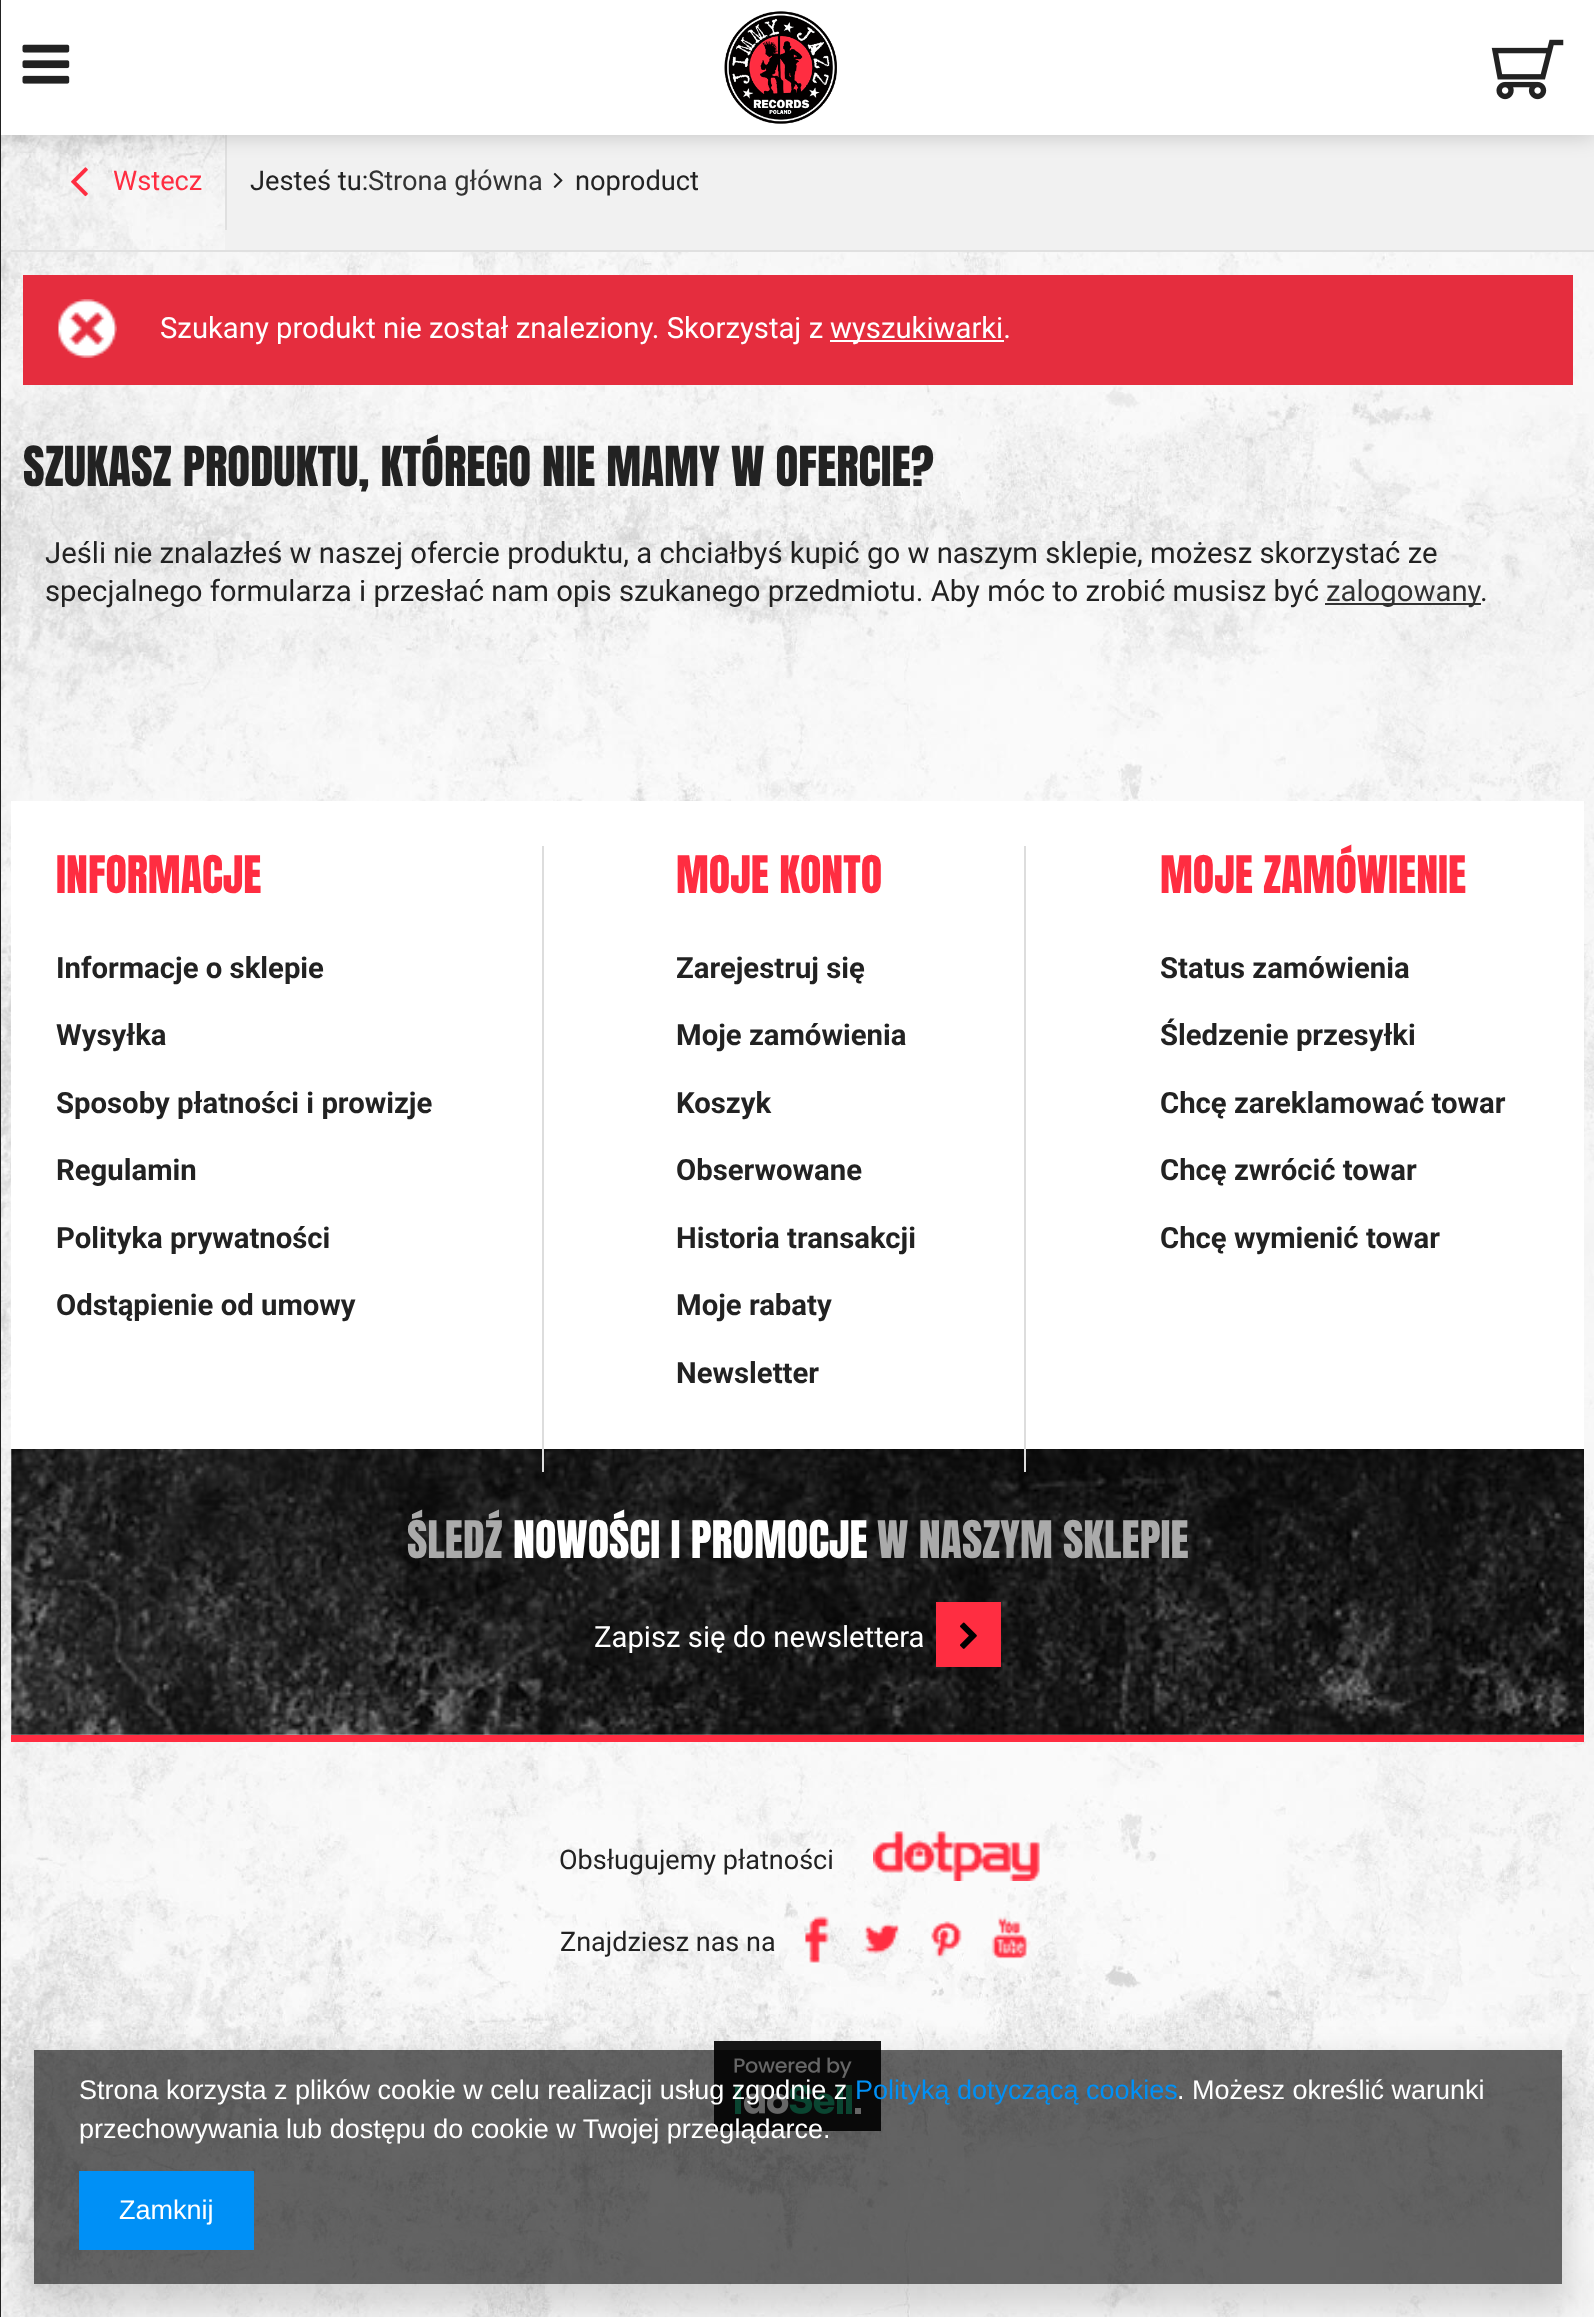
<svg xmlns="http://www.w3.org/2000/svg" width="1594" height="2317">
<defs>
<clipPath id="clip1"><path d="M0 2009h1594v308h-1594zm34 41h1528v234h-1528z" clip-rule="evenodd"/></clipPath>
</defs>
<rect width="100%" height="100%" fill="#fff"/>
<image x="1" y="135" width="1593" height="2182" href="media/1.png"/>
<rect x="225" y="135" width="1369" height="115" fill="#f1f1f1"/>
<image x="71" y="167" width="17" height="30" href="media/5.png"/>
<rect x="225" y="133" width="2" height="97" fill="#e0e0e0"/>
<rect width="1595" height="135" fill="#00000033" filter="blur(11px)"/>
<rect x="1" width="1593" height="135" fill="#fff"/>
<image x="22" y="44" width="48" height="40" href="media/2.png"/>
<image x="724" y="11" width="113" height="113" href="media/3.png"/>
<image x="1491" y="39" width="73" height="61" href="media/4.png"/>
<text x="113" y="190" style="font-family:Roboto;font-size:27.25px;fill:#ff2d41">Wstecz</text>
<text x="250" y="190" style="font-family:Roboto;font-size:27.25px;fill:#222">Jesteś tu:</text>
<text x="368" y="190" style="font-family:Roboto;font-size:27.25px;fill:#333">Strona główna</text>
<image x="553" y="172" width="10" height="16" href="media/6.png"/>
<text x="575" y="190" style="font-family:Roboto;font-size:27.25px;fill:#222">noproduct</text>
<rect x="11" y="250" width="1583" height="2" fill="#e0e0e0"/>
<image x="714" y="2041" width="167" height="90" href="media/15.png"/>
<g clip-path="url(#clip1)">
<rect x="27" y="2061" width="1541" height="248" fill="#00000026" filter="blur(17px)"/>
</g>
<rect width="1" height="2317" fill="#222"/>
<rect x="23" y="275" width="1550" height="110" fill="#e52d3e"/>
<image x="58" y="299" width="59" height="59" href="media/7.png"/>
<text x="160" y="338" style="font-family:Roboto;font-size:29.25px;fill:#fff">Szukany produkt nie został znaleziony. Skorzystaj z</text>
<rect x="830" y="340" width="174" height="2" fill="#fff"/>
<text x="830" y="338" style="font-family:Roboto;font-size:29.25px;fill:#fff">wyszukiwarki.</text>
<text x="23" y="486" style="font-family:Anton;font-size:46.9px;fill:#222">SZUKASZ PRODUKTU, KTÓREGO NIE MAMY W OFERCIE?</text>
<text x="45" y="563" style="font-family:Roboto;font-size:29.3px;fill:#222">Jeśli nie znalazłeś w naszej ofercie produktu, a chciałbyś kupić go w naszym sklepie, możesz skorzystać ze</text>
<text x="45" y="601" style="font-family:Roboto;font-size:29.3px;fill:#222">specjalnego formularza i przesłać nam opis szukanego przedmiotu. Aby móc to zrobić musisz być</text>
<rect x="1325" y="603" width="156" height="2" fill="#333"/>
<text x="1326" y="601" style="font-family:Roboto;font-size:29.3px;fill:#333">zalogowany</text>
<text x="1480" y="601" style="font-family:Roboto;font-size:29.3px;fill:#222">.</text>
<rect x="11" y="801" width="1573" height="648" fill="#fff"/>
<text x="56" y="893" style="font-family:Anton;font-size:44px;fill:#ff2d41">INFORMACJE</text>
<text x="56" y="978" style="font-family:Roboto;font-size:29.3px;font-weight:bold;fill:#222">Informacje o sklepie</text>
<text x="56" y="1045" style="font-family:Roboto;font-size:29.3px;font-weight:bold;fill:#222">Wysyłka</text>
<text x="56" y="1113" style="font-family:Roboto;font-size:29.3px;font-weight:bold;fill:#222">Sposoby płatności i prowizje</text>
<text x="56" y="1180" style="font-family:Roboto;font-size:29.3px;font-weight:bold;fill:#222">Regulamin</text>
<text x="56" y="1248" style="font-family:Roboto;font-size:29.3px;font-weight:bold;fill:#222">Polityka prywatności</text>
<text x="56" y="1315" style="font-family:Roboto;font-size:29.3px;font-weight:bold;fill:#222">Odstąpienie od umowy</text>
<image x="11" y="1449" width="1573" height="286" href="media/8.png"/>
<rect x="542" y="846" width="2" height="626" fill="#ddd"/>
<text x="676" y="893" style="font-family:Anton;font-size:44px;fill:#ff2d41">MOJE KONTO</text>
<text x="676" y="978" style="font-family:Roboto;font-size:29.3px;font-weight:bold;fill:#222">Zarejestruj się</text>
<text x="676" y="1045" style="font-family:Roboto;font-size:29.3px;font-weight:bold;fill:#222">Moje zamówienia</text>
<text x="676" y="1113" style="font-family:Roboto;font-size:29.3px;font-weight:bold;fill:#222">Koszyk</text>
<text x="676" y="1180" style="font-family:Roboto;font-size:29.3px;font-weight:bold;fill:#222">Obserwowane</text>
<text x="676" y="1248" style="font-family:Roboto;font-size:29.3px;font-weight:bold;fill:#222">Historia transakcji</text>
<text x="676" y="1315" style="font-family:Roboto;font-size:29.3px;font-weight:bold;fill:#222">Moje rabaty</text>
<text x="676" y="1383" style="font-family:Roboto;font-size:29.3px;font-weight:bold;fill:#222">Newsletter</text>
<rect x="1024" y="846" width="2" height="626" fill="#ddd"/>
<text x="1160" y="893" style="font-family:Anton;font-size:44px;fill:#ff2d41">MOJE ZAMÓWIENIE</text>
<text x="1160" y="978" style="font-family:Roboto;font-size:29.3px;font-weight:bold;fill:#222">Status zamówienia</text>
<text x="1160" y="1045" style="font-family:Roboto;font-size:29.3px;font-weight:bold;fill:#222">Śledzenie przesyłki</text>
<text x="1160" y="1113" style="font-family:Roboto;font-size:29.3px;font-weight:bold;fill:#222">Chcę zareklamować towar</text>
<text x="1160" y="1180" style="font-family:Roboto;font-size:29.3px;font-weight:bold;fill:#222">Chcę zwrócić towar</text>
<text x="1160" y="1248" style="font-family:Roboto;font-size:29.3px;font-weight:bold;fill:#222">Chcę wymienić towar</text>
<rect x="11" y="1735" width="1573" height="7" fill="#ff2d41"/>
<text x="407" y="1558" style="font-family:Anton;font-size:44px;fill:#aaa">ŚLEDŹ</text>
<text x="513" y="1558" style="font-family:Anton;font-size:44px;fill:#fff">NOWOŚCI I PROMOCJE</text>
<text x="877" y="1558" style="font-family:Anton;font-size:44px;fill:#aaa">W NASZYM SKLEPIE</text>
<text x="594" y="1647" style="font-family:Roboto;font-size:29.25px;fill:#fff">Zapisz się do newslettera</text>
<rect x="936" y="1602" width="65" height="65" fill="#ff2d41"/>
<image x="960" y="1622" width="17" height="27" href="media/9.png"/>
<text x="559" y="1869" style="font-family:Roboto;font-size:27px;fill:#222">Obsługujemy płatności</text>
<image x="873" y="1831" width="167" height="50" href="media/10.png"/>
<text x="560" y="1951" style="font-family:Roboto;font-size:27px;fill:#222">Znajdziesz nas na</text>
<image x="805" y="1916" width="24" height="47" href="media/11.png"/>
<image x="864" y="1923" width="35" height="31" href="media/12.png"/>
<image x="931" y="1921" width="31" height="37" href="media/13.png"/>
<image x="991" y="1916" width="40" height="43" href="media/14.png"/>
<rect x="34" y="2050" width="1528" height="234" fill="#00000099"/>
<text x="79" y="2099" style="font-family:Liberation Sans;font-size:27px;fill:#fff">Strona korzysta z plików cookie w celu realizacji usług zgodnie z</text>
<text x="855" y="2099" style="font-family:Liberation Sans;font-size:27px;fill:#0090f6">Polityką dotyczącą cookies</text>
<text x="1177" y="2099" style="font-family:Liberation Sans;font-size:27px;fill:#fff">. Możesz określić warunki</text>
<text x="79" y="2138" style="font-family:Liberation Sans;font-size:27px;fill:#fff">przechowywania lub dostępu do cookie w Twojej przeglądarce.</text>
<rect x="79" y="2171" width="175" height="79" fill="#0090f6"/>
<text x="119" y="2219" style="font-family:Liberation Sans;font-size:27px;fill:#fff">Zamknij</text>
</svg>
